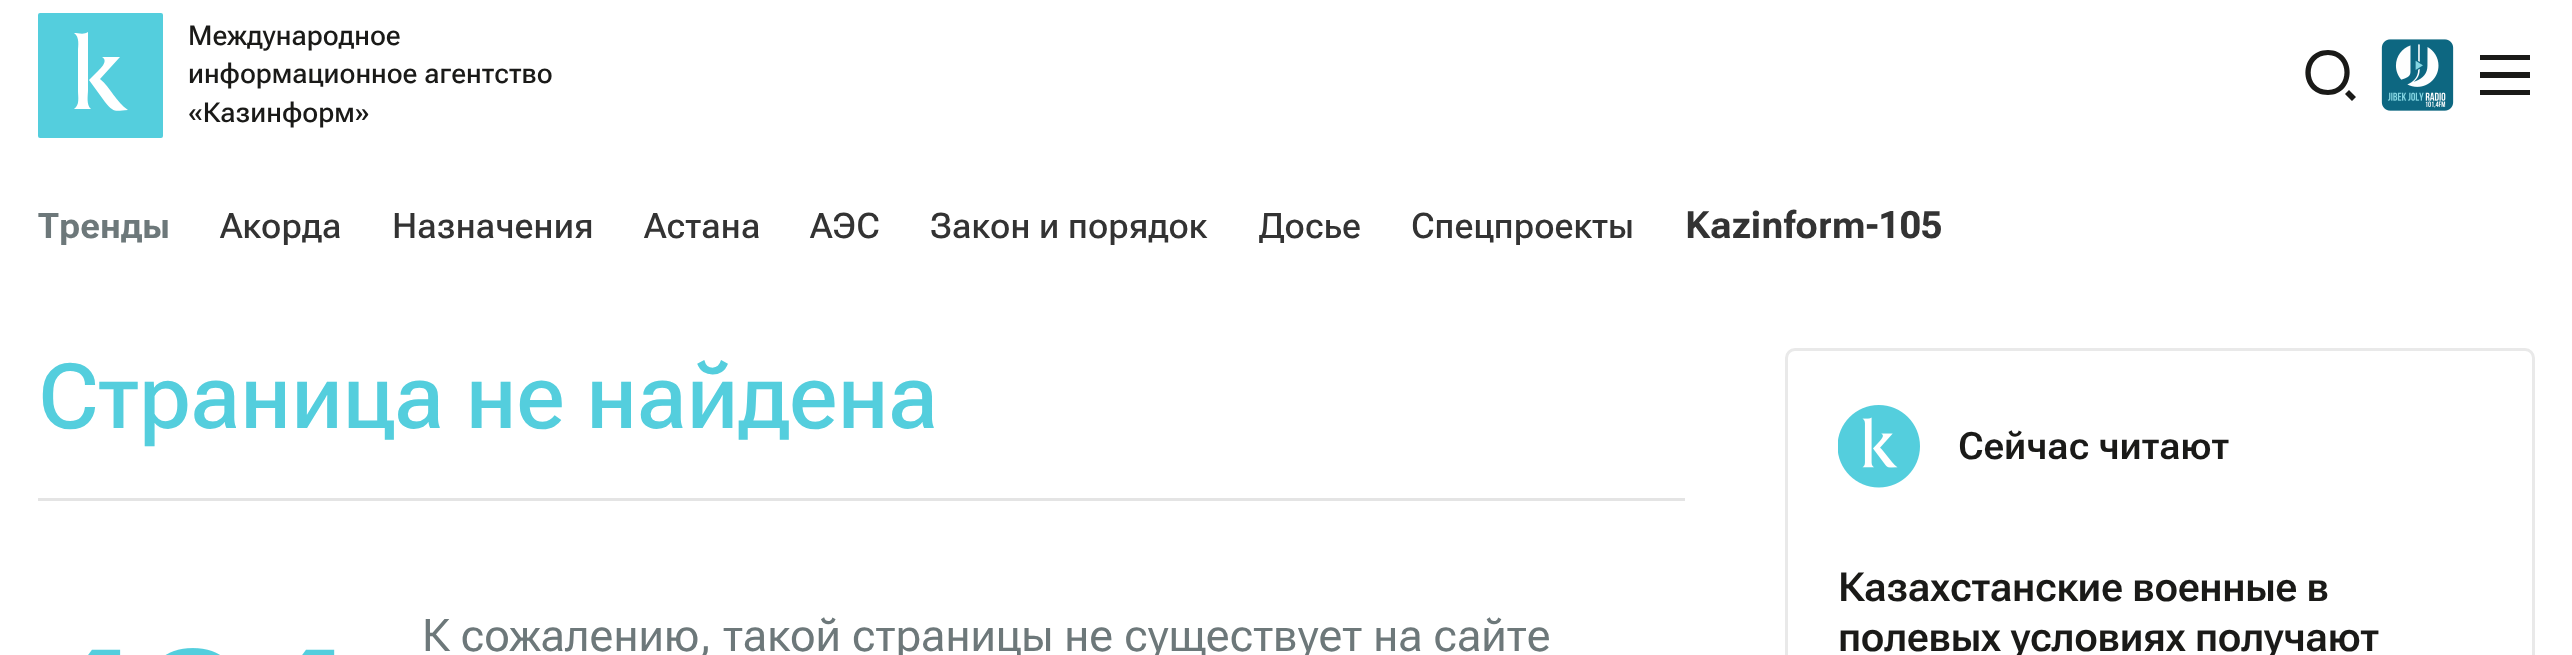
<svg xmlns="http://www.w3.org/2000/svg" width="2572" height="655">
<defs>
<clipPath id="clip1"><rect x="38" y="200" width="2497" height="48"/></clipPath>
</defs>
<rect width="100%" height="100%" fill="#fff"/>
<rect x="38" y="13" width="125" height="125" rx="2" fill="#54cedd"/>
<path d="M89 80l16 22c9 11 10 9 23 8c-12-8-17-22-28-31l20-22h-18c7 4-2 12-5 15z" fill="#fff" fill-rule="evenodd"/>
<path d="M74 33c6 4 4 13 4 18v40c0 6 2 14-4 18h17c-5-4-3-14-3-19v-58c-4 3-10 1-14 1z" fill="#fff" fill-rule="evenodd"/>
<text x="188" y="45" style="font-family:Roboto Flex;font-size:27.5px;font-weight:500;fill:#1a1a18">Международное</text>
<text x="188" y="83" style="font-family:Roboto Flex;font-size:27.5px;font-weight:500;fill:#1a1a18">информационное агентство</text>
<text x="188" y="122" style="font-family:Roboto Flex;font-size:27.5px;font-weight:500;fill:#1a1a18">«Казинформ»</text>
<path d="M2328 50c29 0 29 45 0 45c-30 0-30-45 0-45zm0 40c22 0 22-35 0-35c-23 0-23 35 0 35zm21 0l7 7l-4 4l-7-7z" fill="#1a1a18"/>
<image x="2381" y="39" width="73" height="72" href="media/1.png"/>
<path d="M2480 55h50v5h-50zm0 17h50v6h-50zm0 18h50v5h-50z" fill="#1a1a18"/>
<g clip-path="url(#clip1)">
<text x="38" y="238" style="font-family:Roboto Flex;font-size:35px;font-weight:bold;letter-spacing:0.1px;fill:#6d787a">Тренды</text>
</g>
<text x="220" y="238" style="font-family:Roboto Flex;font-size:35px;font-weight:500;letter-spacing:0.1px;fill:#333">Акорда</text>
<text x="392" y="238" style="font-family:Roboto Flex;font-size:35px;font-weight:500;letter-spacing:0.1px;fill:#333">Назначения</text>
<text x="644" y="238" style="font-family:Roboto Flex;font-size:35px;font-weight:500;letter-spacing:0.1px;fill:#333">Астана</text>
<text x="810" y="238" style="font-family:Roboto Flex;font-size:35px;font-weight:500;letter-spacing:0.1px;fill:#333">АЭС</text>
<text x="930" y="238" style="font-family:Roboto Flex;font-size:35px;font-weight:500;letter-spacing:0.1px;fill:#333">Закон и порядок</text>
<text x="1259" y="238" style="font-family:Roboto Flex;font-size:35px;font-weight:500;letter-spacing:0.1px;fill:#333">Досье</text>
<text x="1411" y="238" style="font-family:Roboto Flex;font-size:35px;font-weight:500;letter-spacing:0.1px;fill:#333">Спецпроекты</text>
<text x="1685" y="238" style="font-family:Roboto Flex;font-size:37.5px;font-weight:bold;letter-spacing:0.1px;fill:#333">Kazinform-105</text>
<rect x="38" y="498" width="1647" height="3" fill="#e4e4e4"/>
<text x="38" y="428" style="font-family:Roboto Flex;font-size:90px;font-weight:500;letter-spacing:-0.4px;fill:#54cedd">Страница не найдена</text>
<image x="88" y="648" width="247" height="7" href="media/2.png"/>
<text x="422" y="651" style="font-family:Roboto Flex;font-size:45px;fill:#6d787a">К сожалению, такой страницы не существует на сайте</text>
<rect x="1786.5" y="349.5" width="747" height="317" rx="8.5" fill="none" stroke="#e9e9e9" stroke-width="3"/>
<image x="1838" y="405" width="82" height="83" href="media/3.png"/>
<text x="1958" y="459" style="font-family:Roboto Flex;font-size:37.5px;font-weight:600;fill:#1a1a18">Сейчас читают</text>
<text x="1838" y="601" style="font-family:Roboto Flex;font-size:40px;font-weight:600;letter-spacing:-0.4px;fill:#1a1a18">Казахстанские военные в</text>
<text x="1838" y="651" style="font-family:Roboto Flex;font-size:40px;font-weight:600;letter-spacing:-0.4px;fill:#1a1a18">полевых условиях получают</text>
</svg>
